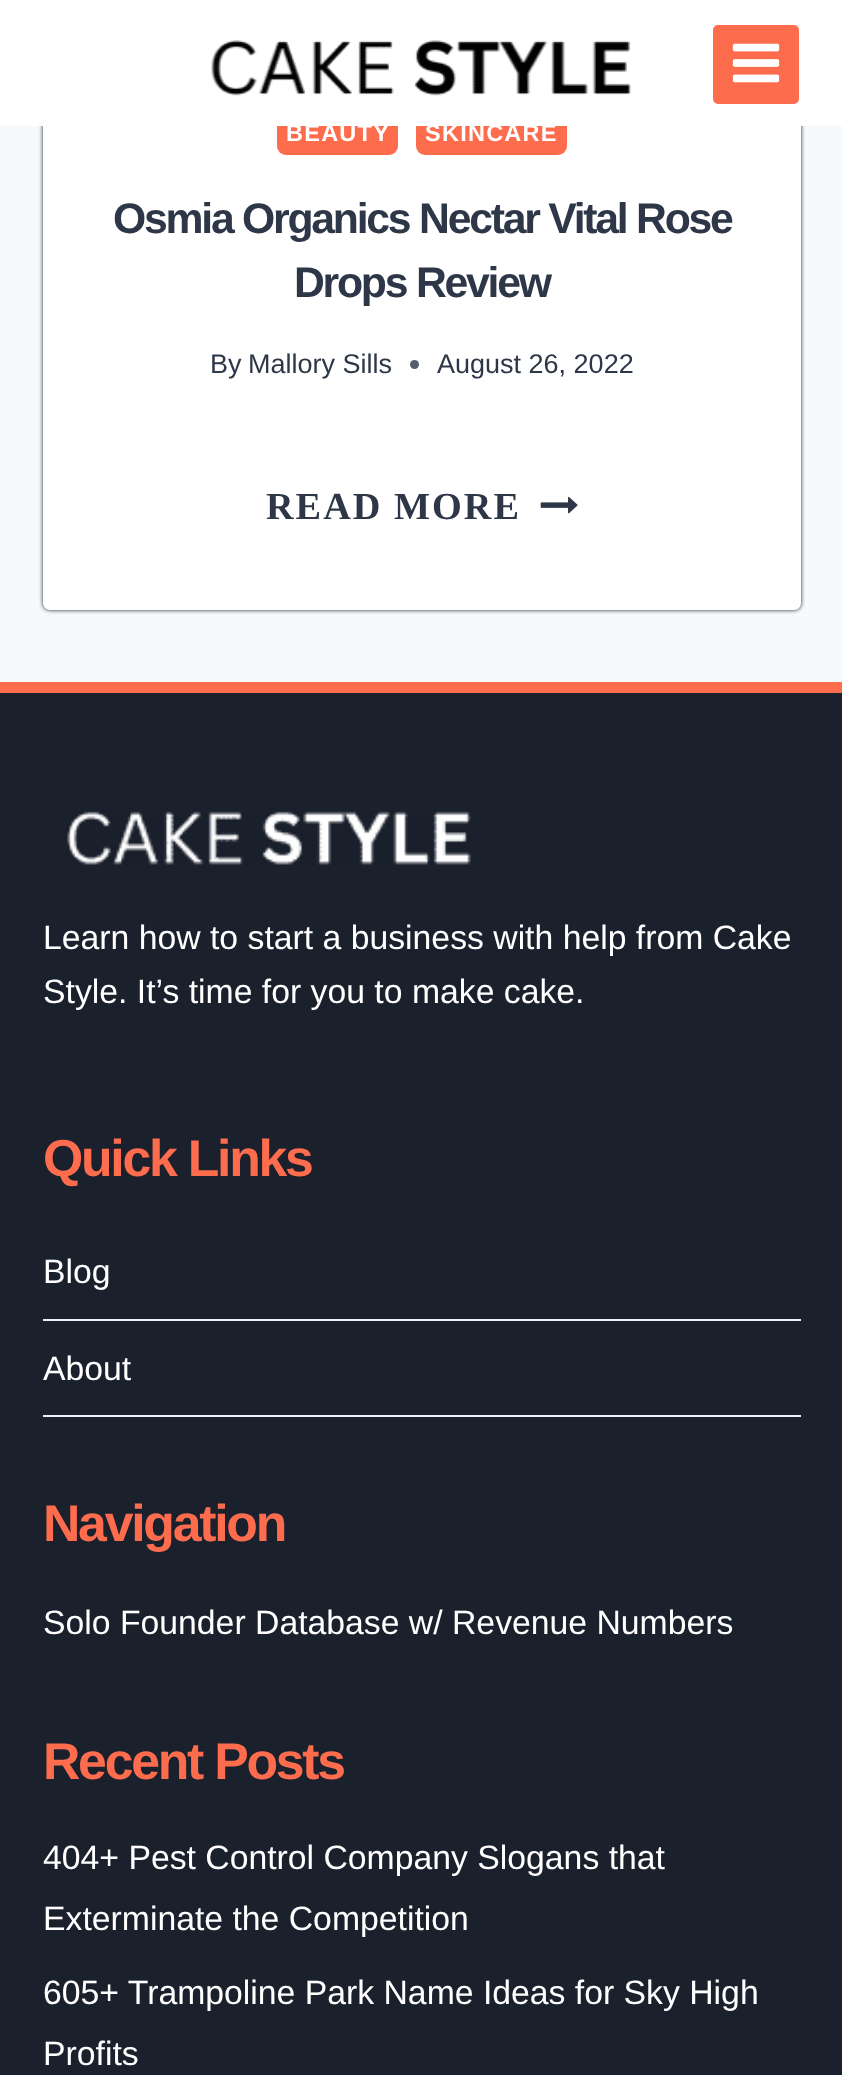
<svg xmlns="http://www.w3.org/2000/svg" width="842" height="2075">
<rect width="100%" height="100%" fill="#f7fafc"/>
<rect x="43" y="-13" width="758" height="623" rx="7" fill="#1a202c" filter="blur(2px)"/>
<rect x="43" y="-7" width="758" height="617" rx="7" fill="#fff"/>
<rect x="277" y="108" width="121" height="47" rx="9" fill="#fe6c4e"/>
<rect x="416" y="108" width="151" height="47" rx="9" fill="#fe6c4e"/>
<rect width="842" height="126" fill="#fff"/>
<image x="211" y="40" width="421" height="56" href="media/1.png"/>
<rect x="712" y="24" width="88" height="81" rx="6" fill="#fe6c4e" stroke="#fff" stroke-width="2"/>
<image x="732" y="43" width="48" height="40" href="media/2.png"/>
<text x="286" y="141" style="font-family:Liberation Sans;font-size:23.5px;font-weight:bold;letter-spacing:1.25px;fill:#fff">BEAUTY</text>
<text x="425" y="141" style="font-family:Liberation Sans;font-size:23.5px;font-weight:bold;letter-spacing:1.25px;fill:#fff">SKINCARE</text>
<text x="113" y="233" style="font-family:Liberation Sans;font-size:42.75px;font-weight:bold;letter-spacing:-2.25px;fill:#2d3748">Osmia Organics Nectar Vital Rose</text>
<text x="294" y="297" style="font-family:Liberation Sans;font-size:42.75px;font-weight:bold;letter-spacing:-2.25px;fill:#2d3748">Drops Review</text>
<text x="210" y="373" style="font-family:Liberation Sans;font-size:27px;fill:#2d3748">By</text>
<text x="248" y="373" style="font-family:Liberation Sans;font-size:27px;fill:#2d3748">Mallory Sills</text>
<circle cx="414.5" cy="364.5" r="4.5" fill="#575f6d"/>
<text x="437" y="373" style="font-family:Liberation Sans;font-size:27px;fill:#2d3748">August 26, 2022</text>
<text x="266" y="519" style="font-family:Liberation Serif;font-size:38.25px;font-weight:bold;letter-spacing:2px;fill:#2d3748">READ MORE</text>
<image x="540" y="497" width="38" height="17" href="media/3.png"/>
<rect y="693" width="842" height="1382" fill="#1a202c"/>
<rect y="682" width="842" height="11" fill="#fe6c4e"/>
<image x="67" y="811" width="404" height="54" href="media/4.png"/>
<text x="43" y="949" style="font-family:Liberation Sans;font-size:33.75px;fill:#fff">Learn how to start a business with help from Cake</text>
<text x="43" y="1003" style="font-family:Liberation Sans;font-size:33.75px;fill:#fff">Style. It’s time for you to make cake.</text>
<text x="43" y="1176" style="font-family:Liberation Sans;font-size:51.75px;font-weight:bold;letter-spacing:-2.25px;fill:#fe6c4e">Quick Links</text>
<rect x="43" y="1319" width="758" height="2" fill="#edf2f7"/>
<text x="43" y="1283" style="font-family:Liberation Sans;font-size:33.75px;fill:#fff">Blog</text>
<rect x="43" y="1415" width="758" height="2" fill="#edf2f7"/>
<text x="43" y="1380" style="font-family:Liberation Sans;font-size:33.75px;fill:#fff">About</text>
<text x="43" y="1541" style="font-family:Liberation Sans;font-size:51.75px;font-weight:bold;letter-spacing:-2.25px;fill:#fe6c4e">Navigation</text>
<text x="43" y="1634" style="font-family:Liberation Sans;font-size:33.75px;fill:#fff">Solo Founder Database w/ Revenue Numbers</text>
<text x="43" y="1779" style="font-family:Liberation Sans;font-size:51.75px;font-weight:bold;letter-spacing:-2.25px;fill:#fe6c4e">Recent Posts</text>
<text x="43" y="1869" style="font-family:Liberation Sans;font-size:33.75px;fill:#fff">404+ Pest Control Company Slogans that</text>
<text x="43" y="1930" style="font-family:Liberation Sans;font-size:33.75px;fill:#fff">Exterminate the Competition</text>
<text x="43" y="2004" style="font-family:Liberation Sans;font-size:33.75px;fill:#fff">605+ Trampoline Park Name Ideas for Sky High</text>
<text x="43" y="2065" style="font-family:Liberation Sans;font-size:33.75px;fill:#fff">Profits</text>
</svg>
